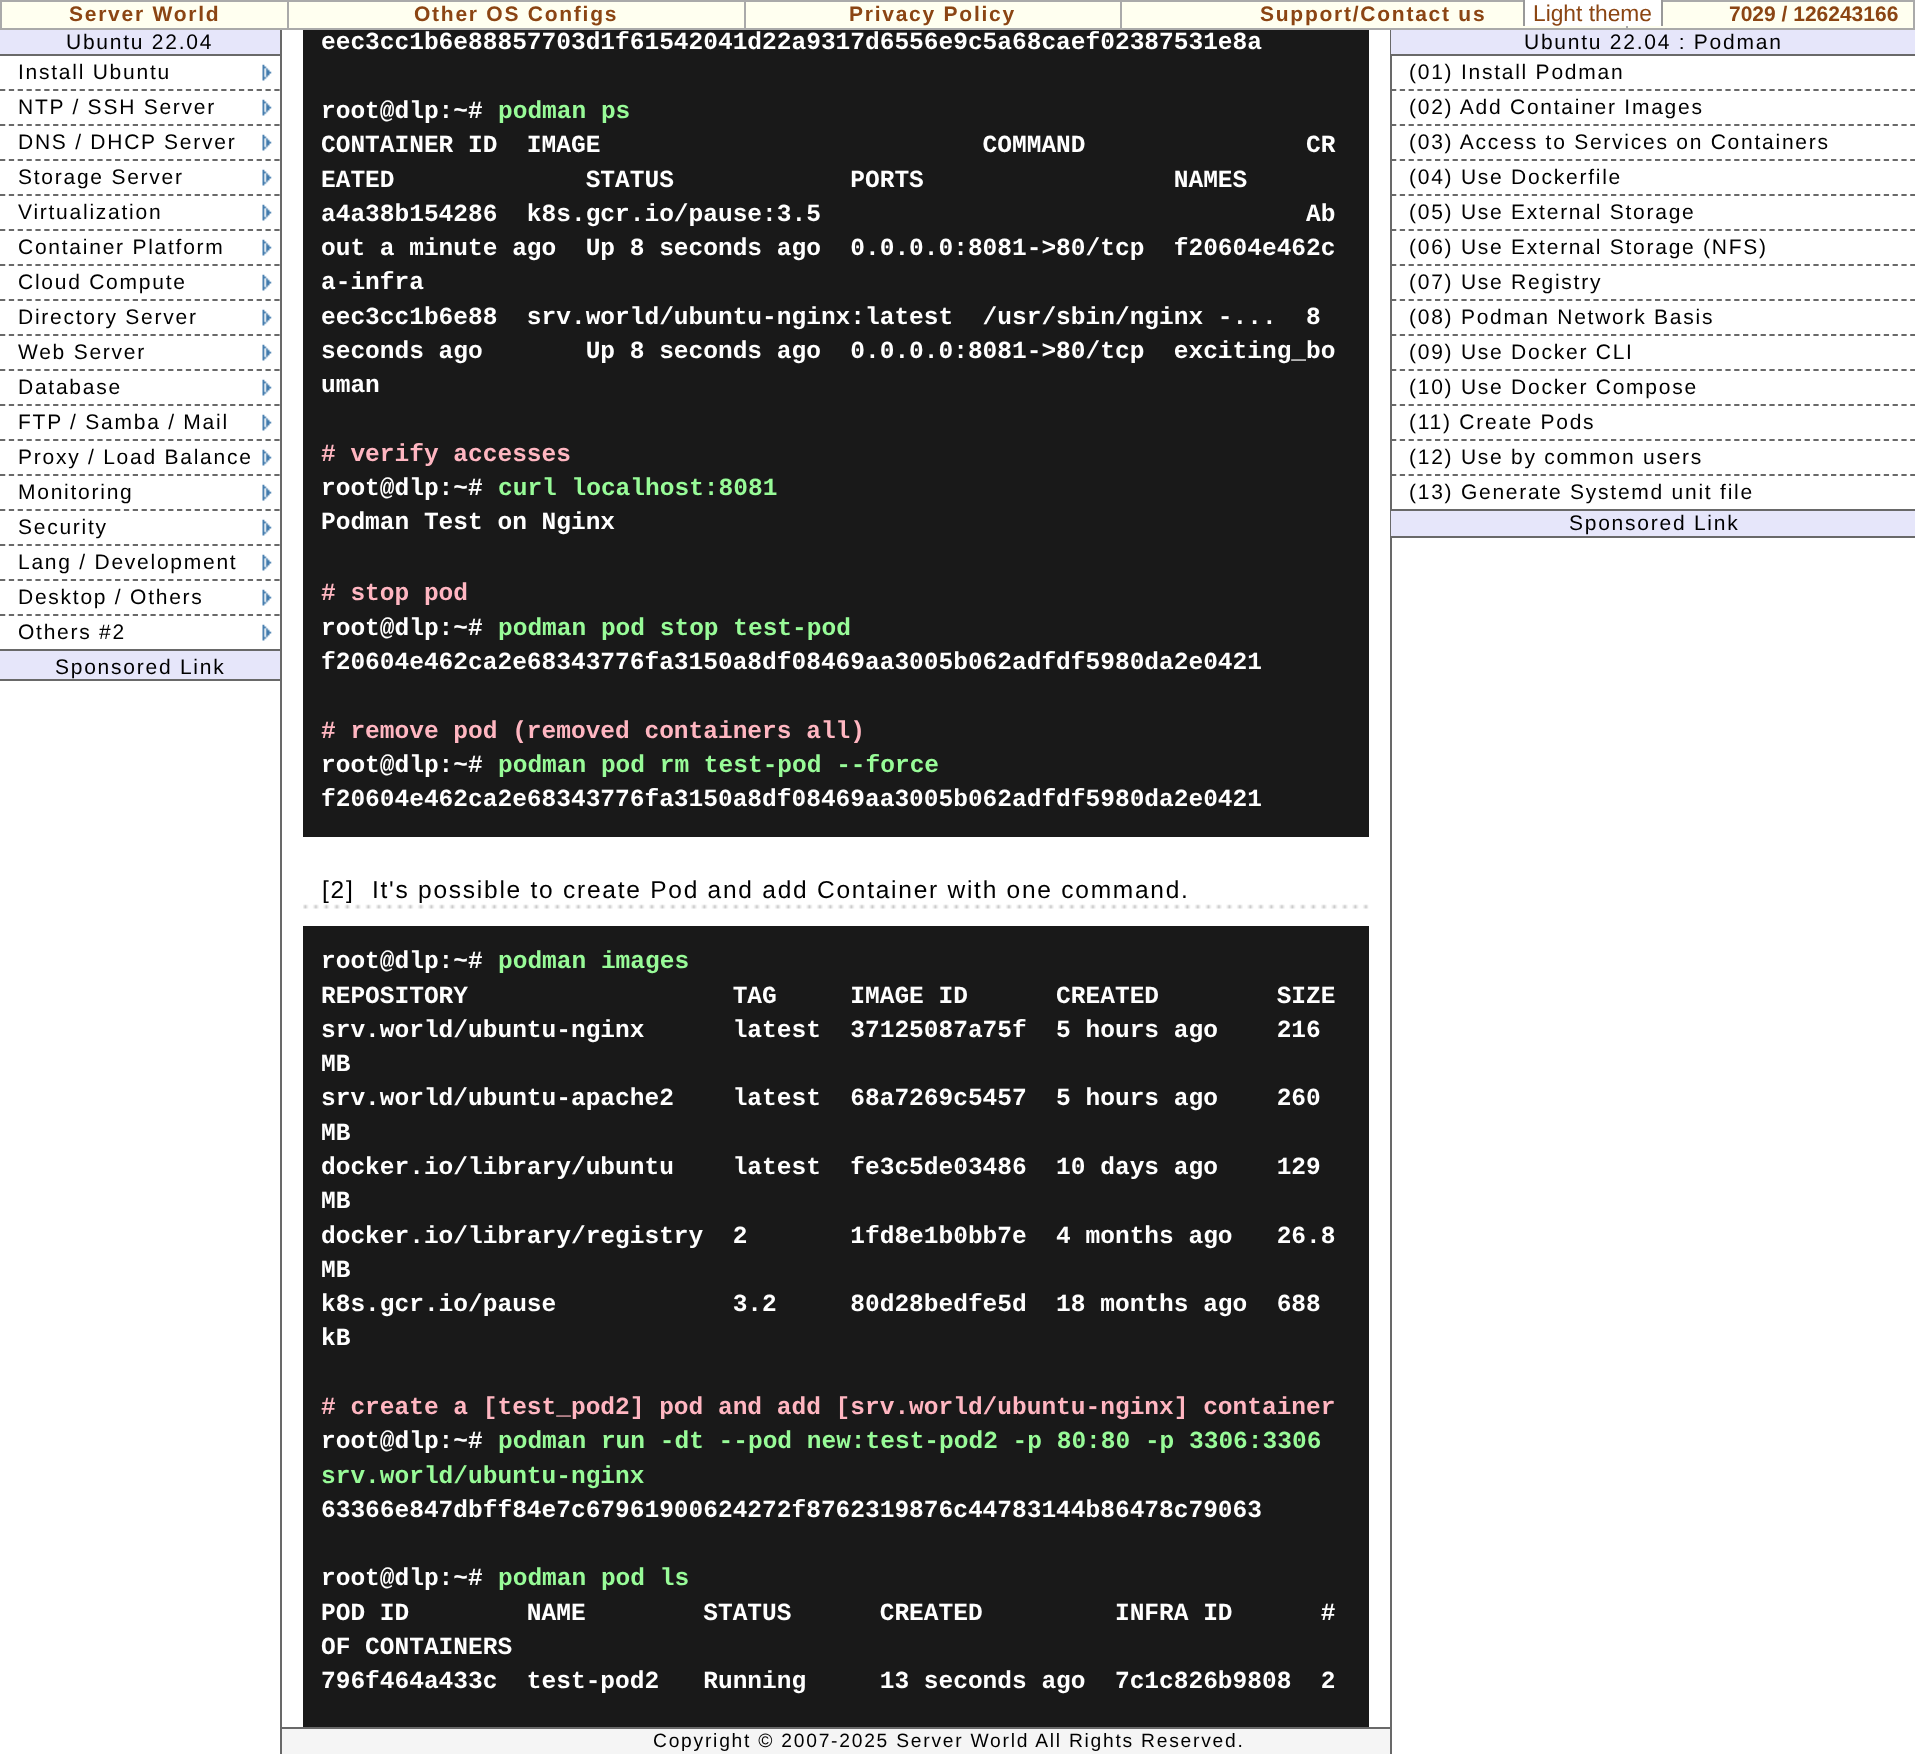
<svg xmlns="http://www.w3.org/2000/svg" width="1915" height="1754">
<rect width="100%" height="100%" fill="#fff"/>
<rect width="1915" height="30" fill="#aaa"/>
<rect x="2" y="2" width="285" height="26" fill="#fffff0"/>
<text x="69" y="21" style="font-family:Liberation Sans;font-size:21px;font-weight:bold;letter-spacing:1.75px;fill:#8b4513">Server World</text>
<rect x="289" y="2" width="455" height="26" fill="#fffff0"/>
<text x="414" y="21" style="font-family:Liberation Sans;font-size:21px;font-weight:bold;letter-spacing:1.75px;fill:#8b4513">Other OS Configs</text>
<rect x="746" y="2" width="374" height="26" fill="#fffff0"/>
<text x="849" y="21" style="font-family:Liberation Sans;font-size:21px;font-weight:bold;letter-spacing:1.75px;fill:#8b4513">Privacy Policy</text>
<rect x="1122" y="2" width="504" height="26" fill="#fffff0"/>
<text x="1260" y="21" style="font-family:Liberation Sans;font-size:21px;font-weight:bold;letter-spacing:1.75px;fill:#8b4513">Support/Contact us</text>
<rect x="1628" y="2" width="285" height="26" fill="#fffff0"/>
<rect x="1525" width="136" height="26" fill="#fff"/>
<rect x="1661" width="2" height="26" fill="#999"/>
<rect x="1523" width="2" height="26" fill="#999"/>
<text x="1533" y="21" style="font-family:Liberation Sans;font-size:22.75px;fill:#8b4513">Light theme</text>
<text x="1729" y="21" style="font-family:Liberation Sans;font-size:21px;font-weight:bold;fill:#8b4513">7029 / 126243166</text>
<rect x="280" y="30" width="2" height="1724" fill="#696969"/>
<rect y="30" width="280" height="24" fill="#e6e6fa"/>
<rect y="54" width="280" height="2" fill="#696969"/>
<text x="66" y="49" style="font-family:Liberation Sans;font-size:21px;letter-spacing:1.75px;fill:#000">Ubuntu 22.04</text>
<image x="262" y="64" width="10" height="17" href="media/1.png"/>
<path d="M0 90h280" fill="none" stroke="#696969" stroke-width="1.8" stroke-dasharray="5.25 3.6"/>
<text x="18" y="79" style="font-family:Liberation Sans;font-size:21px;letter-spacing:1.75px;fill:#000">Install Ubuntu</text>
<image x="262" y="99" width="10" height="17" href="media/1.png"/>
<path d="M0 125h280" fill="none" stroke="#696969" stroke-width="1.8" stroke-dasharray="5.25 3.6"/>
<text x="18" y="114" style="font-family:Liberation Sans;font-size:21px;letter-spacing:1.75px;fill:#000">NTP / SSH Server</text>
<image x="262" y="134" width="10" height="17" href="media/1.png"/>
<path d="M0 160h280" fill="none" stroke="#696969" stroke-width="1.8" stroke-dasharray="5.25 3.6"/>
<text x="18" y="149" style="font-family:Liberation Sans;font-size:21px;letter-spacing:1.75px;fill:#000">DNS / DHCP Server</text>
<image x="262" y="169" width="10" height="17" href="media/1.png"/>
<path d="M0 195h280" fill="none" stroke="#696969" stroke-width="1.8" stroke-dasharray="5.25 3.6"/>
<text x="18" y="184" style="font-family:Liberation Sans;font-size:21px;letter-spacing:1.75px;fill:#000">Storage Server</text>
<image x="262" y="204" width="10" height="17" href="media/1.png"/>
<path d="M0 230h280" fill="none" stroke="#696969" stroke-width="1.8" stroke-dasharray="5.25 3.6"/>
<text x="18" y="219" style="font-family:Liberation Sans;font-size:21px;letter-spacing:1.75px;fill:#000">Virtualization</text>
<image x="262" y="239" width="10" height="17" href="media/1.png"/>
<path d="M0 265h280" fill="none" stroke="#696969" stroke-width="1.8" stroke-dasharray="5.25 3.6"/>
<text x="18" y="254" style="font-family:Liberation Sans;font-size:21px;letter-spacing:1.75px;fill:#000">Container Platform</text>
<image x="262" y="274" width="10" height="17" href="media/1.png"/>
<path d="M0 300h280" fill="none" stroke="#696969" stroke-width="1.8" stroke-dasharray="5.25 3.6"/>
<text x="18" y="289" style="font-family:Liberation Sans;font-size:21px;letter-spacing:1.75px;fill:#000">Cloud Compute</text>
<image x="262" y="309" width="10" height="17" href="media/1.png"/>
<path d="M0 335h280" fill="none" stroke="#696969" stroke-width="1.8" stroke-dasharray="5.25 3.6"/>
<text x="18" y="324" style="font-family:Liberation Sans;font-size:21px;letter-spacing:1.75px;fill:#000">Directory Server</text>
<image x="262" y="344" width="10" height="17" href="media/1.png"/>
<path d="M0 370h280" fill="none" stroke="#696969" stroke-width="1.8" stroke-dasharray="5.25 3.6"/>
<text x="18" y="359" style="font-family:Liberation Sans;font-size:21px;letter-spacing:1.75px;fill:#000">Web Server</text>
<image x="262" y="379" width="10" height="17" href="media/1.png"/>
<path d="M0 405h280" fill="none" stroke="#696969" stroke-width="1.8" stroke-dasharray="5.25 3.6"/>
<text x="18" y="394" style="font-family:Liberation Sans;font-size:21px;letter-spacing:1.75px;fill:#000">Database</text>
<image x="262" y="414" width="10" height="17" href="media/1.png"/>
<path d="M0 440h280" fill="none" stroke="#696969" stroke-width="1.8" stroke-dasharray="5.25 3.6"/>
<text x="18" y="429" style="font-family:Liberation Sans;font-size:21px;letter-spacing:1.75px;fill:#000">FTP / Samba / Mail</text>
<image x="262" y="449" width="10" height="17" href="media/1.png"/>
<path d="M0 475h280" fill="none" stroke="#696969" stroke-width="1.8" stroke-dasharray="5.25 3.6"/>
<text x="18" y="464" style="font-family:Liberation Sans;font-size:21px;letter-spacing:1.75px;fill:#000">Proxy / Load Balance</text>
<image x="262" y="484" width="10" height="17" href="media/2.png"/>
<path d="M0 510h280" fill="none" stroke="#696969" stroke-width="1.8" stroke-dasharray="5.25 3.6"/>
<text x="18" y="499" style="font-family:Liberation Sans;font-size:21px;letter-spacing:1.75px;fill:#000">Monitoring</text>
<image x="262" y="519" width="10" height="17" href="media/1.png"/>
<path d="M0 545h280" fill="none" stroke="#696969" stroke-width="1.8" stroke-dasharray="5.25 3.6"/>
<text x="18" y="534" style="font-family:Liberation Sans;font-size:21px;letter-spacing:1.75px;fill:#000">Security</text>
<image x="262" y="554" width="10" height="17" href="media/1.png"/>
<path d="M0 580h280" fill="none" stroke="#696969" stroke-width="1.8" stroke-dasharray="5.25 3.6"/>
<text x="18" y="569" style="font-family:Liberation Sans;font-size:21px;letter-spacing:1.75px;fill:#000">Lang / Development</text>
<image x="262" y="589" width="10" height="17" href="media/1.png"/>
<path d="M0 615h280" fill="none" stroke="#696969" stroke-width="1.8" stroke-dasharray="5.25 3.6"/>
<text x="18" y="604" style="font-family:Liberation Sans;font-size:21px;letter-spacing:1.75px;fill:#000">Desktop / Others</text>
<image x="262" y="624" width="10" height="17" href="media/1.png"/>
<rect y="649" width="280" height="2" fill="#696969"/>
<text x="18" y="639" style="font-family:Liberation Sans;font-size:21px;letter-spacing:1.75px;fill:#000">Others #2</text>
<rect y="651" width="280" height="28" fill="#e6e6fa"/>
<rect y="679" width="280" height="2" fill="#696969"/>
<text x="55" y="674" style="font-family:Liberation Sans;font-size:21px;letter-spacing:1.75px;fill:#000">Sponsored Link</text>
<rect x="303" y="30" width="1066" height="807" fill="#191919"/>
<text x="321" y="49" style="font-family:Liberation Mono;font-size:24.5px;font-weight:bold;fill:#fff">eec3cc1b6e88857703d1f61542041d22a9317d6556e9c5a68caef02387531e8a</text>
<text x="321" y="118" style="font-family:Liberation Mono;font-size:24.5px;font-weight:bold;fill:#fff">root@dlp:~#</text>
<text x="498" y="118" style="font-family:Liberation Mono;font-size:24.5px;font-weight:bold;fill:#98fb98">podman ps</text>
<text x="321" y="152" style="font-family:Liberation Mono;font-size:24.5px;font-weight:bold;fill:#fff" xml:space="preserve">CONTAINER ID  IMAGE                          COMMAND               CR</text>
<text x="321" y="187" style="font-family:Liberation Mono;font-size:24.5px;font-weight:bold;fill:#fff" xml:space="preserve">EATED             STATUS            PORTS                 NAMES</text>
<text x="321" y="221" style="font-family:Liberation Mono;font-size:24.5px;font-weight:bold;fill:#fff" xml:space="preserve">a4a38b154286  k8s.gcr.io/pause:3.5                                 Ab</text>
<text x="321" y="255" style="font-family:Liberation Mono;font-size:24.5px;font-weight:bold;fill:#fff" xml:space="preserve">out a minute ago  Up 8 seconds ago  0.0.0.0:8081-&gt;80/tcp  f20604e462c</text>
<text x="321" y="289" style="font-family:Liberation Mono;font-size:24.5px;font-weight:bold;fill:#fff">a-infra</text>
<text x="321" y="324" style="font-family:Liberation Mono;font-size:24.5px;font-weight:bold;fill:#fff" xml:space="preserve">eec3cc1b6e88  srv.world/ubuntu-nginx:latest  /usr/sbin/nginx -...  8</text>
<text x="321" y="358" style="font-family:Liberation Mono;font-size:24.5px;font-weight:bold;fill:#fff" xml:space="preserve">seconds ago       Up 8 seconds ago  0.0.0.0:8081-&gt;80/tcp  exciting_bo</text>
<text x="321" y="392" style="font-family:Liberation Mono;font-size:24.5px;font-weight:bold;fill:#fff">uman</text>
<text x="321" y="461" style="font-family:Liberation Mono;font-size:24.5px;font-weight:bold;fill:#ffb6c1"># verify accesses</text>
<text x="321" y="495" style="font-family:Liberation Mono;font-size:24.5px;font-weight:bold;fill:#fff">root@dlp:~#</text>
<text x="498" y="495" style="font-family:Liberation Mono;font-size:24.5px;font-weight:bold;fill:#98fb98">curl localhost:8081</text>
<text x="321" y="529" style="font-family:Liberation Mono;font-size:24.5px;font-weight:bold;fill:#fff">Podman Test on Nginx</text>
<text x="321" y="600" style="font-family:Liberation Mono;font-size:24.5px;font-weight:bold;fill:#ffb6c1"># stop pod</text>
<text x="321" y="635" style="font-family:Liberation Mono;font-size:24.5px;font-weight:bold;fill:#fff">root@dlp:~#</text>
<text x="498" y="635" style="font-family:Liberation Mono;font-size:24.5px;font-weight:bold;fill:#98fb98">podman pod stop test-pod</text>
<text x="321" y="669" style="font-family:Liberation Mono;font-size:24.5px;font-weight:bold;fill:#fff">f20604e462ca2e68343776fa3150a8df08469aa3005b062adfdf5980da2e0421</text>
<text x="321" y="738" style="font-family:Liberation Mono;font-size:24.5px;font-weight:bold;fill:#ffb6c1"># remove pod (removed containers all)</text>
<text x="321" y="772" style="font-family:Liberation Mono;font-size:24.5px;font-weight:bold;fill:#fff">root@dlp:~#</text>
<text x="498" y="772" style="font-family:Liberation Mono;font-size:24.5px;font-weight:bold;fill:#98fb98">podman pod rm test-pod --force</text>
<text x="321" y="806" style="font-family:Liberation Mono;font-size:24.5px;font-weight:bold;fill:#fff">f20604e462ca2e68343776fa3150a8df08469aa3005b062adfdf5980da2e0421</text>
<image x="303" y="904" width="1066" height="5" href="media/3.png"/>
<text x="322" y="898" style="font-family:Liberation Sans;font-size:24.5px;letter-spacing:1.75px;fill:#000">[2]</text>
<text x="372" y="898" style="font-family:Liberation Sans;font-size:24.5px;letter-spacing:1.75px;fill:#000">It's possible to create Pod and add Container with one command.</text>
<rect x="303" y="926" width="1066" height="801" fill="#191919"/>
<text x="321" y="968" style="font-family:Liberation Mono;font-size:24.5px;font-weight:bold;fill:#fff">root@dlp:~#</text>
<text x="498" y="968" style="font-family:Liberation Mono;font-size:24.5px;font-weight:bold;fill:#98fb98">podman images</text>
<text x="321" y="1003" style="font-family:Liberation Mono;font-size:24.5px;font-weight:bold;fill:#fff" xml:space="preserve">REPOSITORY                  TAG     IMAGE ID      CREATED        SIZE</text>
<text x="321" y="1037" style="font-family:Liberation Mono;font-size:24.5px;font-weight:bold;fill:#fff" xml:space="preserve">srv.world/ubuntu-nginx      latest  37125087a75f  5 hours ago    216</text>
<text x="321" y="1071" style="font-family:Liberation Mono;font-size:24.5px;font-weight:bold;fill:#fff">MB</text>
<text x="321" y="1105" style="font-family:Liberation Mono;font-size:24.5px;font-weight:bold;fill:#fff" xml:space="preserve">srv.world/ubuntu-apache2    latest  68a7269c5457  5 hours ago    260</text>
<text x="321" y="1140" style="font-family:Liberation Mono;font-size:24.5px;font-weight:bold;fill:#fff">MB</text>
<text x="321" y="1174" style="font-family:Liberation Mono;font-size:24.5px;font-weight:bold;fill:#fff" xml:space="preserve">docker.io/library/ubuntu    latest  fe3c5de03486  10 days ago    129</text>
<text x="321" y="1208" style="font-family:Liberation Mono;font-size:24.5px;font-weight:bold;fill:#fff">MB</text>
<text x="321" y="1243" style="font-family:Liberation Mono;font-size:24.5px;font-weight:bold;fill:#fff" xml:space="preserve">docker.io/library/registry  2       1fd8e1b0bb7e  4 months ago   26.8</text>
<text x="321" y="1277" style="font-family:Liberation Mono;font-size:24.5px;font-weight:bold;fill:#fff">MB</text>
<text x="321" y="1311" style="font-family:Liberation Mono;font-size:24.5px;font-weight:bold;fill:#fff" xml:space="preserve">k8s.gcr.io/pause            3.2     80d28bedfe5d  18 months ago  688</text>
<text x="321" y="1345" style="font-family:Liberation Mono;font-size:24.5px;font-weight:bold;fill:#fff">kB</text>
<text x="321" y="1414" style="font-family:Liberation Mono;font-size:24.5px;font-weight:bold;fill:#ffb6c1"># create a [test_pod2] pod and add [srv.world/ubuntu-nginx] container</text>
<text x="321" y="1448" style="font-family:Liberation Mono;font-size:24.5px;font-weight:bold;fill:#fff">root@dlp:~#</text>
<text x="498" y="1448" style="font-family:Liberation Mono;font-size:24.5px;font-weight:bold;fill:#98fb98">podman run -dt --pod new:test-pod2 -p 80:80 -p 3306:3306</text>
<text x="321" y="1483" style="font-family:Liberation Mono;font-size:24.5px;font-weight:bold;fill:#98fb98">srv.world/ubuntu-nginx</text>
<text x="321" y="1517" style="font-family:Liberation Mono;font-size:24.5px;font-weight:bold;fill:#fff">63366e847dbff84e7c67961900624272f8762319876c44783144b86478c79063</text>
<text x="321" y="1585" style="font-family:Liberation Mono;font-size:24.5px;font-weight:bold;fill:#fff">root@dlp:~#</text>
<text x="498" y="1585" style="font-family:Liberation Mono;font-size:24.5px;font-weight:bold;fill:#98fb98">podman pod ls</text>
<text x="321" y="1620" style="font-family:Liberation Mono;font-size:24.5px;font-weight:bold;fill:#fff" xml:space="preserve">POD ID        NAME        STATUS      CREATED         INFRA ID      #</text>
<text x="321" y="1654" style="font-family:Liberation Mono;font-size:24.5px;font-weight:bold;fill:#fff">OF CONTAINERS</text>
<text x="321" y="1688" style="font-family:Liberation Mono;font-size:24.5px;font-weight:bold;fill:#fff" xml:space="preserve">796f464a433c  test-pod2   Running     13 seconds ago  7c1c826b9808  2</text>
<rect x="1390" y="30" width="2" height="1724" fill="#696969"/>
<rect x="1391" y="30" width="524" height="24" fill="#e6e6fa"/>
<rect x="1391" y="54" width="524" height="2" fill="#696969"/>
<text x="1524" y="49" style="font-family:Liberation Sans;font-size:21px;letter-spacing:1.75px;fill:#000">Ubuntu 22.04 : Podman</text>
<path d="M1391 90h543" fill="none" stroke="#696969" stroke-width="1.8" stroke-dasharray="5.25 3.55"/>
<text x="1409" y="79" style="font-family:Liberation Sans;font-size:21px;letter-spacing:1.75px;fill:#000">(01) Install Podman</text>
<path d="M1391 125h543" fill="none" stroke="#696969" stroke-width="1.8" stroke-dasharray="5.25 3.55"/>
<text x="1409" y="114" style="font-family:Liberation Sans;font-size:21px;letter-spacing:1.75px;fill:#000">(02) Add Container Images</text>
<path d="M1391 160h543" fill="none" stroke="#696969" stroke-width="1.8" stroke-dasharray="5.25 3.55"/>
<text x="1409" y="149" style="font-family:Liberation Sans;font-size:21px;letter-spacing:1.75px;fill:#000">(03) Access to Services on Containers</text>
<path d="M1391 195h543" fill="none" stroke="#696969" stroke-width="1.8" stroke-dasharray="5.25 3.55"/>
<text x="1409" y="184" style="font-family:Liberation Sans;font-size:21px;letter-spacing:1.75px;fill:#000">(04) Use Dockerfile</text>
<path d="M1391 230h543" fill="none" stroke="#696969" stroke-width="1.8" stroke-dasharray="5.25 3.55"/>
<text x="1409" y="219" style="font-family:Liberation Sans;font-size:21px;letter-spacing:1.75px;fill:#000">(05) Use External Storage</text>
<path d="M1391 265h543" fill="none" stroke="#696969" stroke-width="1.8" stroke-dasharray="5.25 3.55"/>
<text x="1409" y="254" style="font-family:Liberation Sans;font-size:21px;letter-spacing:1.75px;fill:#000">(06) Use External Storage (NFS)</text>
<path d="M1391 300h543" fill="none" stroke="#696969" stroke-width="1.8" stroke-dasharray="5.25 3.55"/>
<text x="1409" y="289" style="font-family:Liberation Sans;font-size:21px;letter-spacing:1.75px;fill:#000">(07) Use Registry</text>
<path d="M1391 335h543" fill="none" stroke="#696969" stroke-width="1.8" stroke-dasharray="5.25 3.55"/>
<text x="1409" y="324" style="font-family:Liberation Sans;font-size:21px;letter-spacing:1.75px;fill:#000">(08) Podman Network Basis</text>
<path d="M1391 370h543" fill="none" stroke="#696969" stroke-width="1.8" stroke-dasharray="5.25 3.55"/>
<text x="1409" y="359" style="font-family:Liberation Sans;font-size:21px;letter-spacing:1.75px;fill:#000">(09) Use Docker CLI</text>
<path d="M1391 405h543" fill="none" stroke="#696969" stroke-width="1.8" stroke-dasharray="5.25 3.55"/>
<text x="1409" y="394" style="font-family:Liberation Sans;font-size:21px;letter-spacing:1.75px;fill:#000">(10) Use Docker Compose</text>
<path d="M1391 440h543" fill="none" stroke="#696969" stroke-width="1.8" stroke-dasharray="5.25 3.55"/>
<text x="1409" y="429" style="font-family:Liberation Sans;font-size:21px;letter-spacing:1.75px;fill:#000">(11) Create Pods</text>
<path d="M1391 475h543" fill="none" stroke="#696969" stroke-width="1.8" stroke-dasharray="5.25 3.55"/>
<text x="1409" y="464" style="font-family:Liberation Sans;font-size:21px;letter-spacing:1.75px;fill:#000">(12) Use by common users</text>
<rect x="1391" y="509" width="524" height="2" fill="#696969"/>
<text x="1409" y="499" style="font-family:Liberation Sans;font-size:21px;letter-spacing:1.75px;fill:#000">(13) Generate Systemd unit file</text>
<rect x="1391" y="511" width="524" height="25" fill="#e6e6fa"/>
<rect x="1391" y="536" width="524" height="2" fill="#696969"/>
<text x="1569" y="530" style="font-family:Liberation Sans;font-size:21px;letter-spacing:1.75px;fill:#000">Sponsored Link</text>
<rect x="282" y="1729" width="1108" height="25" fill="#f5f5f5"/>
<rect x="282" y="1727" width="1108" height="2" fill="#696969"/>
<text x="653" y="1747" style="font-family:Liberation Sans;font-size:19.25px;letter-spacing:1.75px;fill:#000">Copyright © 2007-2025 Server World All Rights Reserved.</text>
</svg>
